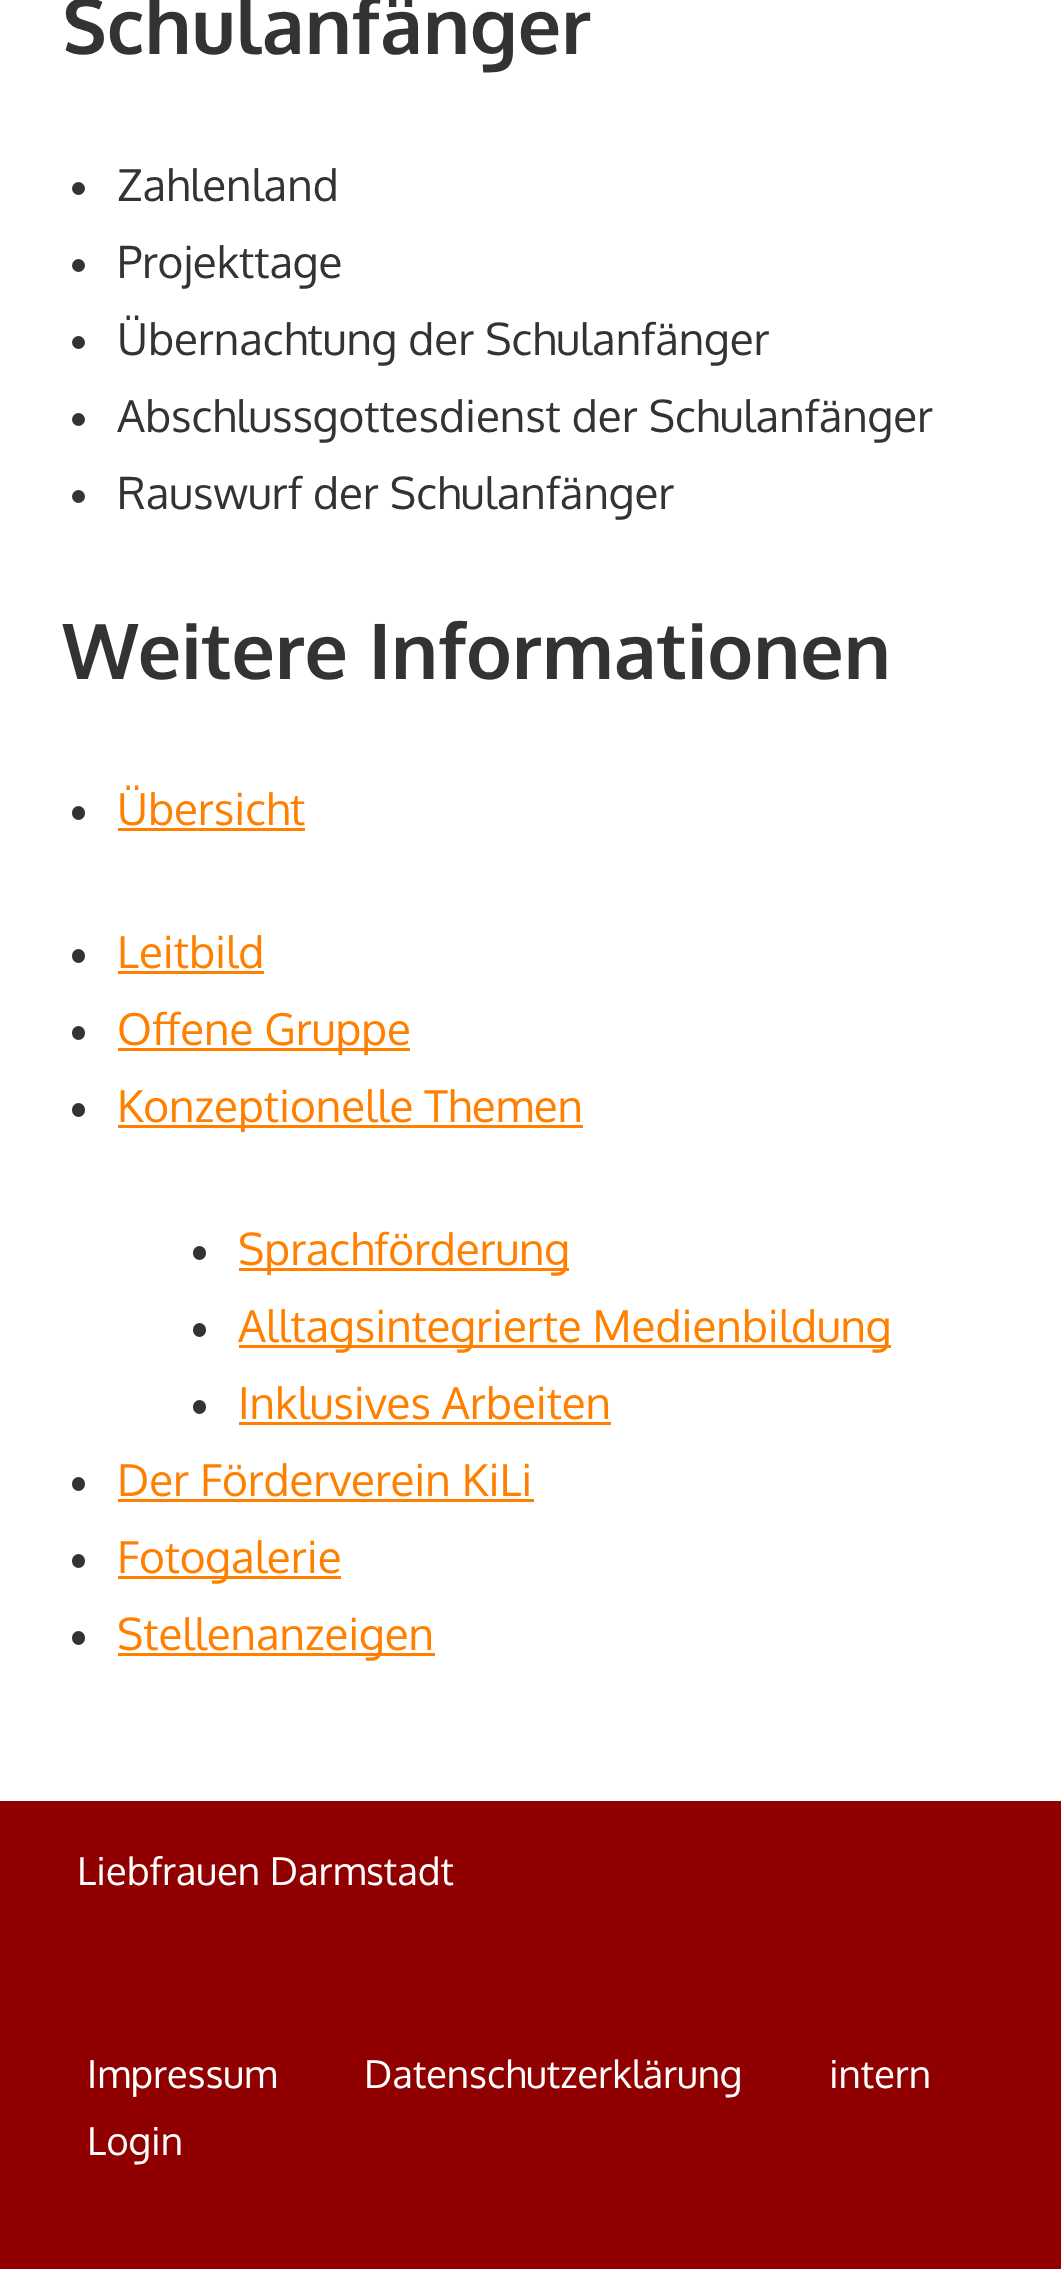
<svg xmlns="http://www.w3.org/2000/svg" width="1061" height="2269">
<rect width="100%" height="100%" fill="#fff"/>
<text x="62" y="54" style="font-family:Oxygen;font-size:77px;font-weight:bold;fill:#333">Schulanfänger</text>
<circle cx="78.5" cy="188.5" r="6.5" fill="#333"/>
<text x="117" y="201" style="font-family:Oxygen;font-size:44px;fill:#333">Zahlenland</text>
<circle cx="78.5" cy="265.5" r="6.5" fill="#333"/>
<text x="117" y="278" style="font-family:Oxygen;font-size:44px;fill:#333">Projekttage</text>
<circle cx="78.5" cy="342.5" r="6.5" fill="#333"/>
<text x="117" y="355" style="font-family:Oxygen;font-size:44px;fill:#333">Übernachtung der Schulanfänger</text>
<circle cx="78.5" cy="419.5" r="6.5" fill="#333"/>
<text x="117" y="432" style="font-family:Oxygen;font-size:44px;fill:#333">Abschlussgottesdienst der Schulanfänger</text>
<circle cx="78.5" cy="496.5" r="6.5" fill="#333"/>
<text x="117" y="509" style="font-family:Oxygen;font-size:44px;fill:#333">Rauswurf der Schulanfänger</text>
<text x="62" y="679" style="font-family:Oxygen;font-size:77px;font-weight:bold;fill:#333">Weitere Informationen</text>
<rect x="72" y="806" width="13" height="14" rx="6.5" fill="#333"/>
<text x="117" y="825" style="font-family:Oxygen;font-size:44px;fill:#ff8000">Übersicht</text>
<rect x="118" y="828" width="187" height="3" fill="#ff8000"/>
<rect x="72" y="949" width="13" height="14" rx="6.5" fill="#333"/>
<text x="117" y="968" style="font-family:Oxygen;font-size:44px;fill:#ff8000">Leitbild</text>
<rect x="118" y="971" width="146" height="3" fill="#ff8000"/>
<rect x="72" y="1026" width="13" height="14" rx="6.5" fill="#333"/>
<rect x="118" y="1048" width="292" height="3" fill="#ff8000"/>
<text x="117" y="1045" style="font-family:Oxygen;font-size:44px;fill:#ff8000">Offene Gruppe</text>
<rect x="72" y="1103" width="13" height="14" rx="6.5" fill="#333"/>
<rect x="118" y="1125" width="465" height="3" fill="#ff8000"/>
<text x="117" y="1122" style="font-family:Oxygen;font-size:44px;fill:#ff8000">Konzeptionelle Themen</text>
<rect x="193" y="1246" width="13" height="14" rx="6.5" fill="#333"/>
<rect x="239" y="1268" width="330" height="3" fill="#ff8000"/>
<text x="238" y="1265" style="font-family:Oxygen;font-size:44px;fill:#ff8000">Sprachförderung</text>
<rect x="193" y="1323" width="13" height="14" rx="6.5" fill="#333"/>
<rect x="239" y="1345" width="652" height="3" fill="#ff8000"/>
<text x="238" y="1342" style="font-family:Oxygen;font-size:44px;fill:#ff8000">Alltagsintegrierte Medienbildung</text>
<rect x="193" y="1400" width="13" height="14" rx="6.5" fill="#333"/>
<text x="238" y="1419" style="font-family:Oxygen;font-size:44px;fill:#ff8000">Inklusives Arbeiten</text>
<rect x="239" y="1422" width="372" height="3" fill="#ff8000"/>
<rect x="72" y="1477" width="13" height="14" rx="6.5" fill="#333"/>
<text x="117" y="1496" style="font-family:Oxygen;font-size:44px;fill:#ff8000">Der Förderverein KiLi</text>
<rect x="118" y="1499" width="416" height="3" fill="#ff8000"/>
<rect x="72" y="1554" width="13" height="14" rx="6.5" fill="#333"/>
<rect x="118" y="1576" width="223" height="3" fill="#ff8000"/>
<text x="117" y="1573" style="font-family:Oxygen;font-size:44px;fill:#ff8000">Fotogalerie</text>
<rect x="72" y="1631" width="13" height="14" rx="6.5" fill="#333"/>
<rect x="118" y="1653" width="317" height="3" fill="#ff8000"/>
<text x="117" y="1650" style="font-family:Oxygen;font-size:44px;fill:#ff8000">Stellenanzeigen</text>
<rect y="1801" width="1061" height="468" fill="#910000"/>
<text x="77" y="1885" style="font-family:Oxygen;font-size:38.5px;fill:#fff">Liebfrauen Darmstadt</text>
<text x="87" y="2088" style="font-family:Oxygen;font-size:38.5px;fill:#fff">Impressum</text>
<text x="364" y="2088" style="font-family:Oxygen;font-size:38.5px;fill:#fff">Datenschutzerklärung</text>
<text x="829" y="2088" style="font-family:Oxygen;font-size:38.5px;fill:#fff">intern</text>
<text x="87" y="2155" style="font-family:Oxygen;font-size:38.5px;fill:#fff">Login</text>
</svg>
